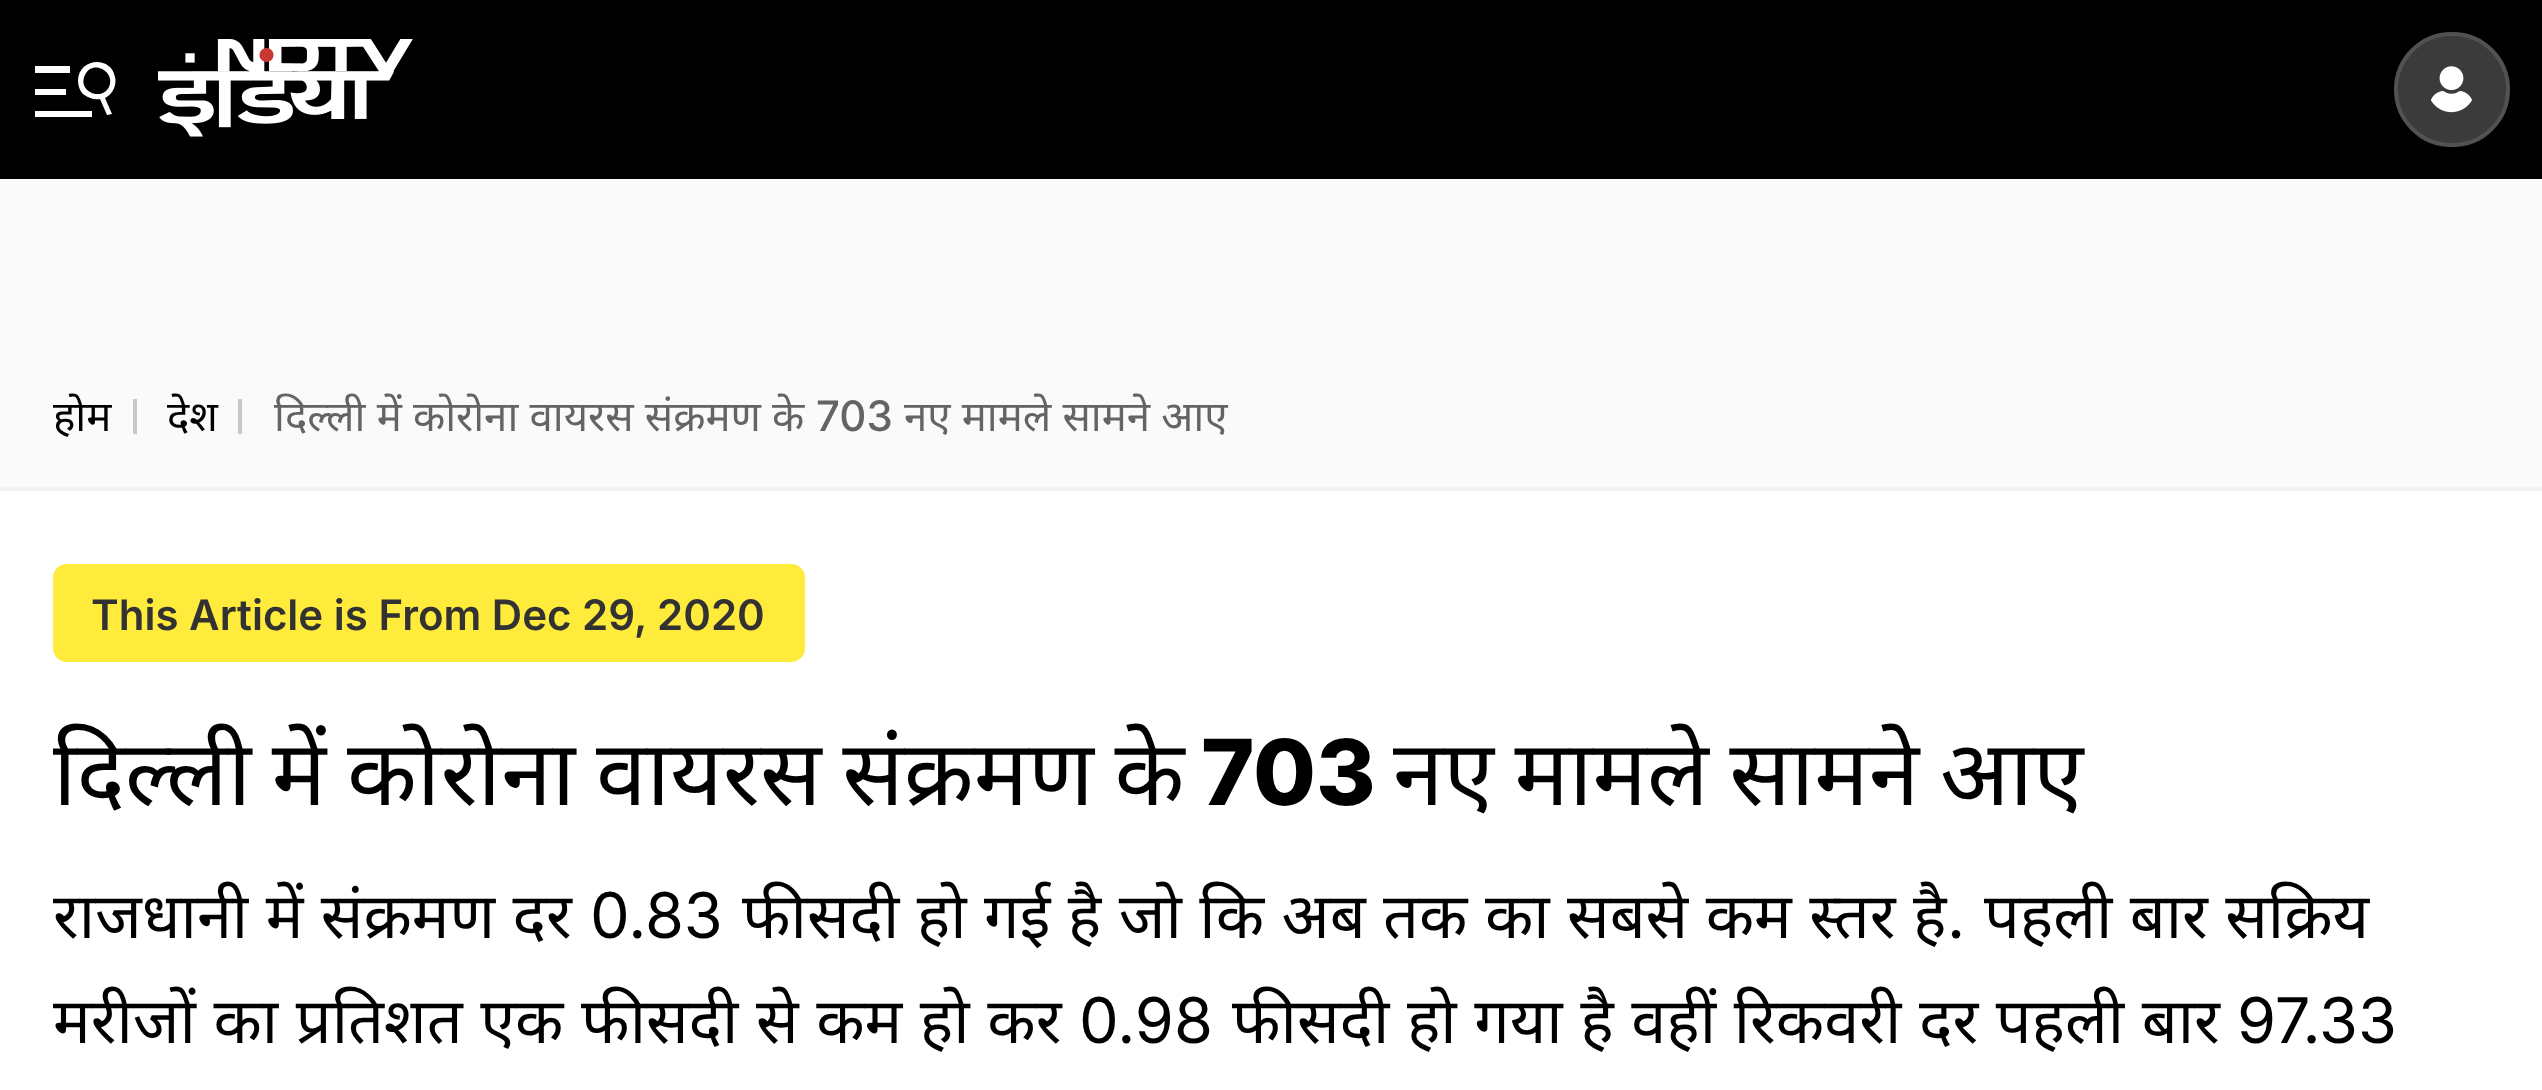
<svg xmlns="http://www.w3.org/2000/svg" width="2542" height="1090">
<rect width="100%" height="100%" fill="#fafafa"/>
<rect width="2542" height="179" fill="#000"/>
<rect x="35" y="66" width="35" height="7" fill="#fff"/>
<rect x="35" y="89" width="31" height="6" fill="#fff"/>
<rect x="35" y="111" width="57" height="6" fill="#fff"/>
<path d="M115 77c-4-22-37-19-37 4c0 5 2 10 5 13c5 4 11 6 17 5l7 16l5-1l-7-16c8-4 12-13 10-21zm-6 10c-8 15-32 4-24-12c7-16 31-4 24 12z" fill="#fff"/>
<image x="158" y="39" width="255" height="98" href="media/1.png"/>
<rect x="2396" y="34" width="112" height="111" rx="55.5" fill="#3b3b3b" stroke="#525252" stroke-width="4"/>
<image x="2431" y="66" width="41" height="47" href="media/2.png"/>
<text x="53" y="431" style="font-family:Noto Sans;font-size:42px;fill:#000">होम</text>
<rect x="133" y="399" width="4" height="35" fill="#c8c8c8"/>
<text x="167" y="431" style="font-family:Noto Sans;font-size:42px;fill:#000">देश</text>
<rect x="238" y="399" width="4" height="35" fill="#c8c8c8"/>
<text x="274" y="431" word-spacing="0.25" style="font-family:Noto Sans;font-size:42px;fill:#646464">दिल्ली में कोरोना वायरस संक्रमण के</text>
<text x="816" y="431" style="font-family:Inter;font-size:42px;font-weight:500;fill:#646464">703</text>
<text x="904" y="431" word-spacing="0.25" style="font-family:Noto Sans;font-size:42px;fill:#646464">नए मामले सामने आए</text>
<rect y="491" width="2542" height="599" fill="#fff"/>
<rect y="487" width="2542" height="4" fill="#f2f2f2"/>
<rect x="53" y="564" width="752" height="98" rx="14" fill="#ffeb3b"/>
<text x="91" y="630" style="font-family:Inter;font-size:42px;font-weight:600;fill:#323232">This Article is From Dec 29, 2020</text>
<text x="53" y="805" word-spacing="-3" style="font-family:Noto Sans;font-size:91px;fill:#000">दिल्ली में कोरोना वायरस संक्रमण के</text>
<text x="1201" y="805" style="font-family:Inter;font-size:91px;font-weight:800;fill:#000">703</text>
<text x="1393" y="805" word-spacing="-3" style="font-family:Noto Sans;font-size:91px;fill:#000">नए मामले सामने आए</text>
<text x="53" y="938" word-spacing="1.1" style="font-family:Noto Sans;font-size:63px;fill:#000">राजधानी में संक्रमण दर</text>
<text x="590" y="938" style="font-family:Inter;font-size:63px;fill:#000">0.83</text>
<text x="742" y="938" word-spacing="1.1" style="font-family:Noto Sans;font-size:63px;fill:#000">फीसदी हो गई है जो कि अब तक का सबसे कम स्तर है</text>
<text x="1947" y="938" style="font-family:Inter;font-size:63px;fill:#000">.</text>
<text x="1984" y="938" word-spacing="1.1" style="font-family:Noto Sans;font-size:63px;fill:#000">पहली बार सक्रिय</text>
<text x="53" y="1043" word-spacing="1.25" style="font-family:Noto Sans;font-size:63px;fill:#000">मरीजों का प्रतिशत एक फीसदी से कम हो कर</text>
<text x="1079" y="1043" style="font-family:Inter;font-size:63px;fill:#000">0.98</text>
<text x="1232" y="1043" word-spacing="1.25" style="font-family:Noto Sans;font-size:63px;fill:#000">फीसदी हो गया है वहीं रिकवरी दर पहली बार</text>
<text x="2237" y="1043" style="font-family:Inter;font-size:63px;fill:#000">97.33</text>
</svg>
